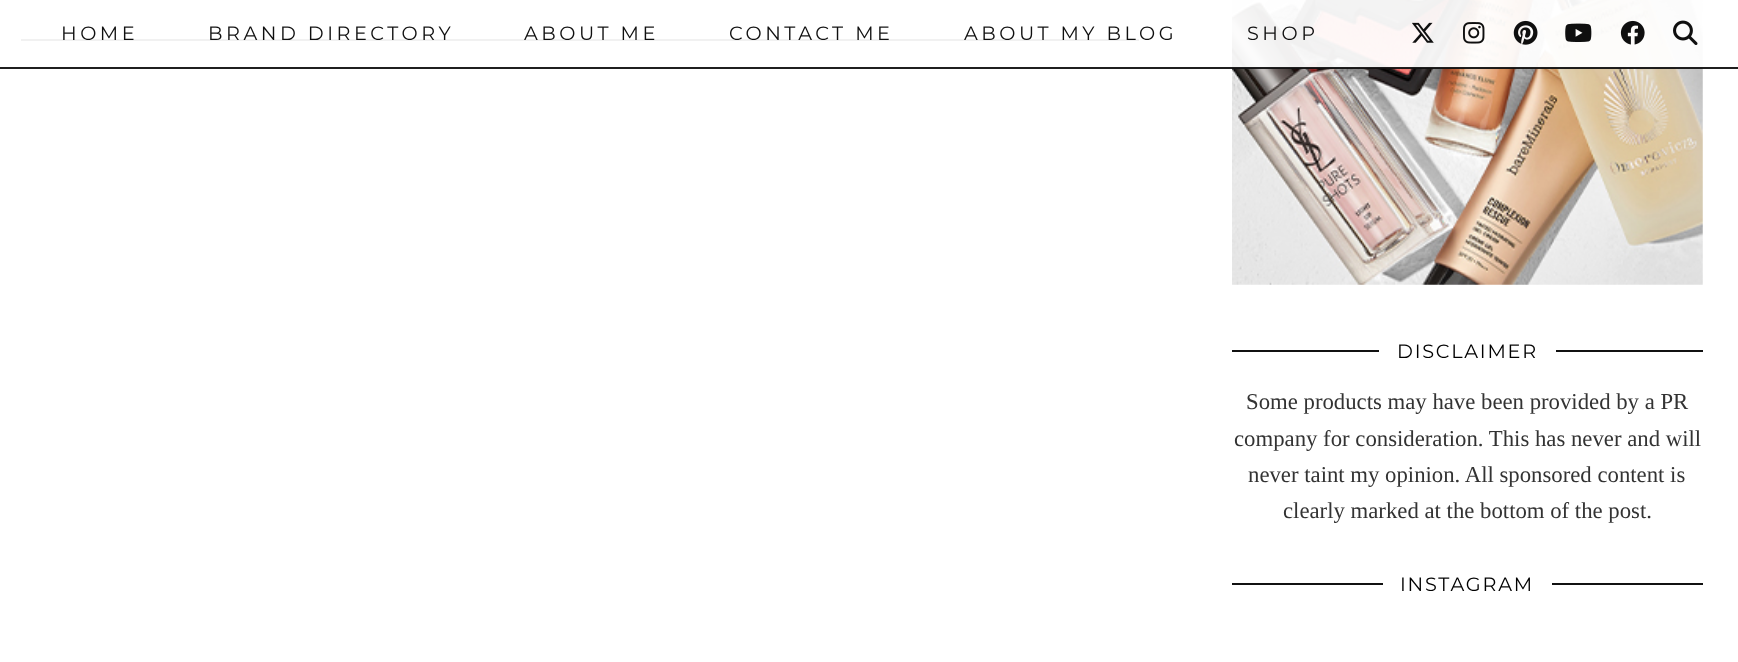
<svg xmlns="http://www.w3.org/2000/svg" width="1738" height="662">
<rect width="100%" height="100%" fill="#fff"/>
<rect x="21" y="39" width="1118" height="2" fill="#111"/>
<image x="1232" y="0" width="471" height="285" href="media/7.png"/>
<rect x="21" width="1682" height="68" fill="#fffffff0"/>
<rect y="67" width="1738" height="2" fill="#111111f0"/>
<text x="61" y="40" style="font-family:Montserrat;font-size:19.25px;font-weight:100;letter-spacing:3.5px;fill:#0f0f0f">HOME</text>
<text x="208" y="40" style="font-family:Montserrat;font-size:19.25px;font-weight:100;letter-spacing:3.5px;fill:#0f0f0f">BRAND DIRECTORY</text>
<text x="524" y="40" style="font-family:Montserrat;font-size:19.25px;font-weight:100;letter-spacing:3.5px;fill:#0f0f0f">ABOUT ME</text>
<text x="729" y="40" style="font-family:Montserrat;font-size:19.25px;font-weight:100;letter-spacing:3.5px;fill:#0f0f0f">CONTACT ME</text>
<text x="964" y="40" style="font-family:Montserrat;font-size:19.25px;font-weight:100;letter-spacing:3.5px;fill:#0f0f0f">ABOUT MY BLOG</text>
<text x="1247" y="40" style="font-family:Montserrat;font-size:19.25px;font-weight:100;letter-spacing:3.5px;fill:#0f0f0f">SHOP</text>
<image x="1412" y="22" width="22" height="21" href="media/1.png"/>
<image x="1463" y="22" width="22" height="22" href="media/2.png"/>
<image x="1513" y="20" width="25" height="25" href="media/3.png"/>
<image x="1565" y="23" width="27" height="19" href="media/4.png"/>
<image x="1620" y="20" width="25" height="25" href="media/5.png"/>
<image x="1673" y="20" width="25" height="25" href="media/6.png"/>
<rect x="1232" y="350" width="471" height="2" fill="#111"/>
<rect x="1379" y="350" width="177" height="2" fill="#fff"/>
<text x="1397" y="358" style="font-family:Montserrat;font-size:19.25px;font-weight:100;letter-spacing:1.75px;fill:#000">DISCLAIMER</text>
<text x="1246" y="409" style="font-family:Liberation Serif;font-size:22.75px;fill:#333">Some products may have been provided by a PR</text>
<text x="1234" y="446" style="font-family:Liberation Serif;font-size:22.75px;fill:#333">company for consideration. This has never and will</text>
<text x="1248" y="482" style="font-family:Liberation Serif;font-size:22.75px;fill:#333">never taint my opinion. All sponsored content is</text>
<text x="1283" y="518" style="font-family:Liberation Serif;font-size:22.75px;fill:#333">clearly marked at the bottom of the post.</text>
<rect x="1232" y="583" width="471" height="2" fill="#111"/>
<rect x="1383" y="583" width="169" height="2" fill="#fff"/>
<text x="1400" y="591" style="font-family:Montserrat;font-size:19.25px;font-weight:100;letter-spacing:1.75px;fill:#000">INSTAGRAM</text>
</svg>
